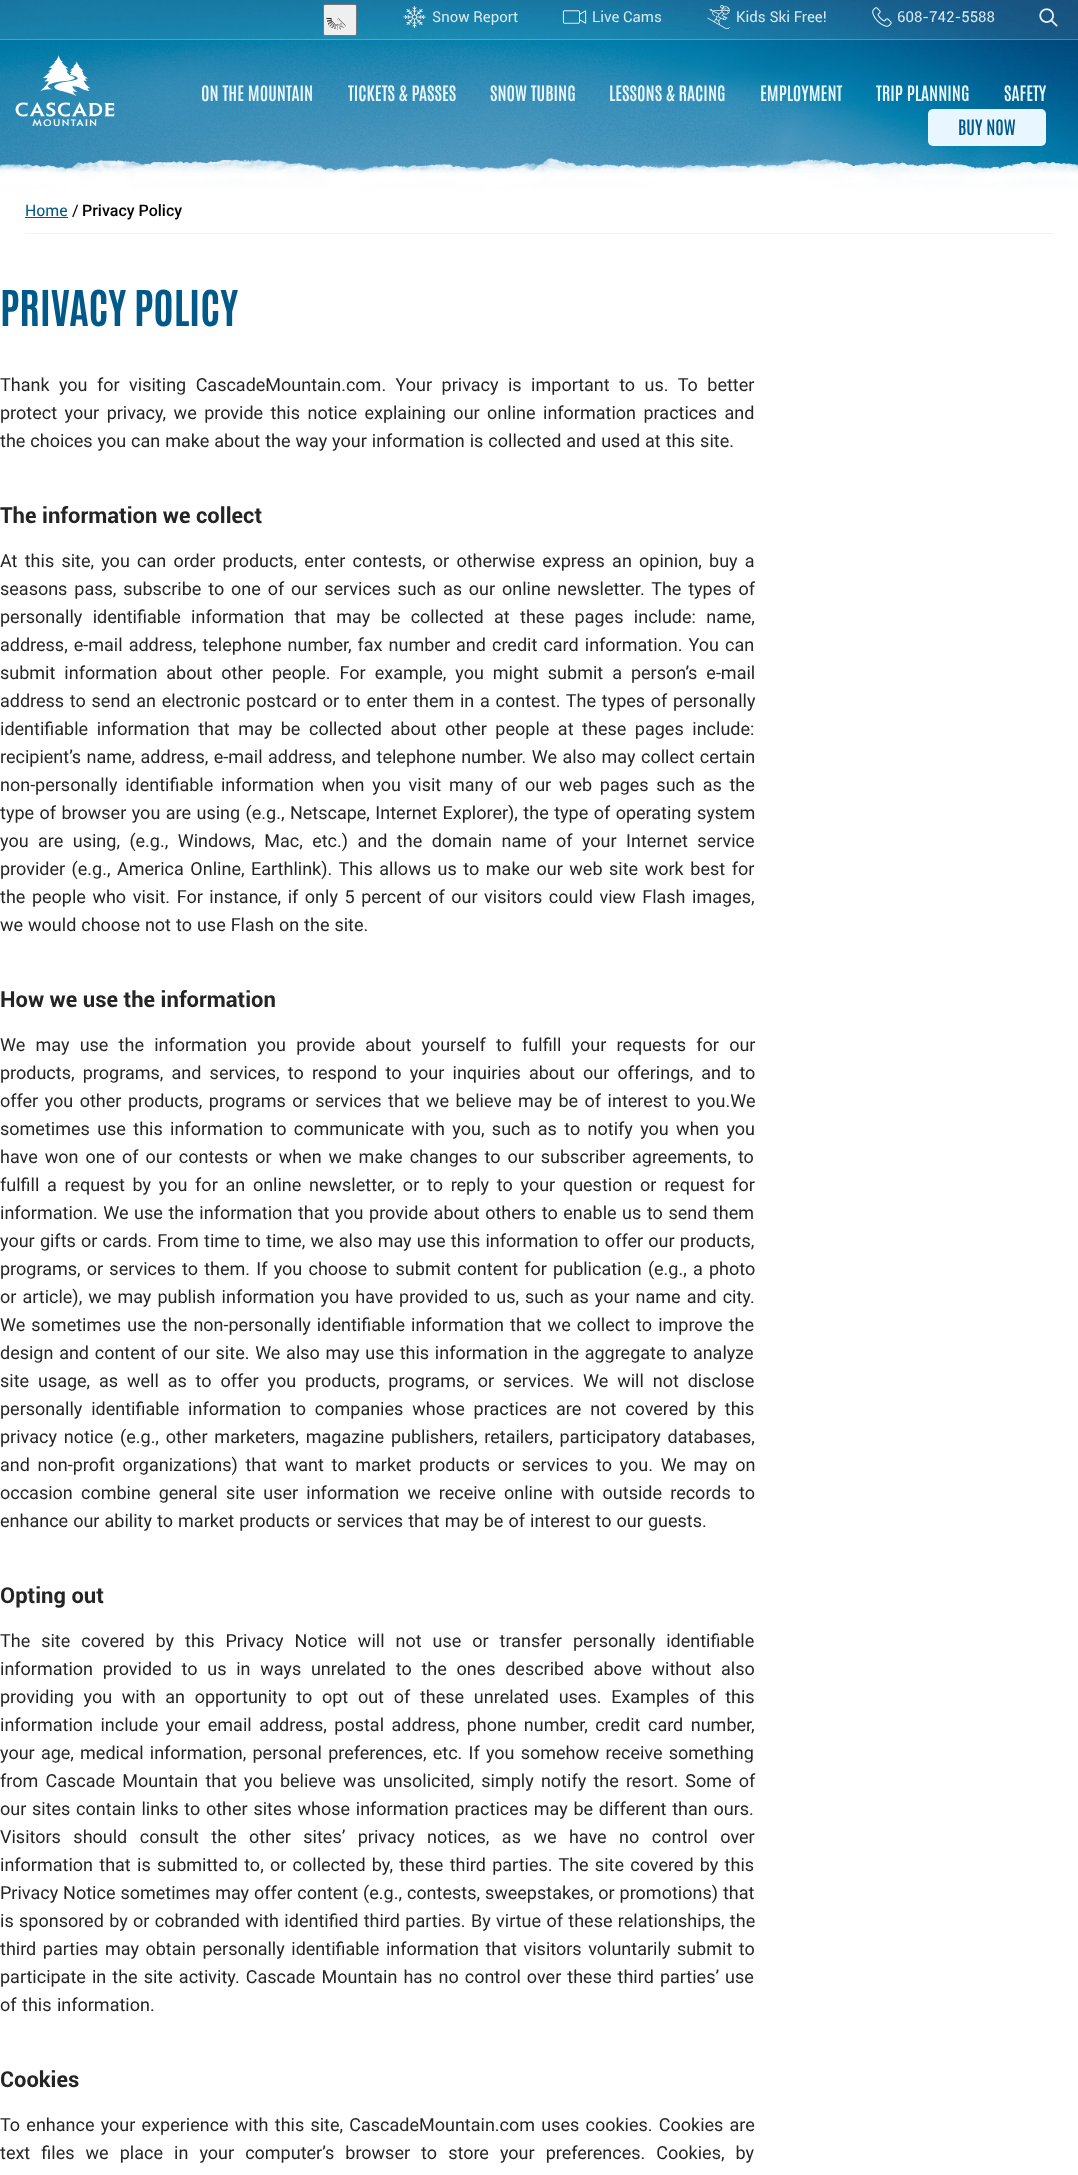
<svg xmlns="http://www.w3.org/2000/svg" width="1078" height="2175">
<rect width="100%" height="100%" fill="#fff"/>
<image x="0" y="0" width="1078" height="197" href="media/1.png"/>
<rect width="1078" height="40" fill="#eaeaea1a"/>
<rect y="39" width="1078" height="1" fill="#d6e8f04d"/>
<rect x="323.5" y="4.5" width="33" height="31" rx="1.5" fill="#efefef" stroke="#767676"/>
<image x="326" y="18" width="20" height="12" href="media/2.png"/>
<image x="403" y="5" width="23" height="24" href="media/3.png"/>
<text x="432" y="22" style="font-family:Roboto;font-size:15px;fill:#d7e8f0">Snow Report</text>
<image x="562" y="10" width="25" height="14" href="media/4.png"/>
<text x="592" y="22" style="font-family:Roboto;font-size:15px;fill:#d7e8f0">Live Cams</text>
<image x="707" y="5" width="23" height="24" href="media/5.png"/>
<text x="736" y="22" style="font-family:Roboto;font-size:15px;fill:#d7e8f0">Kids Ski Free!</text>
<image x="872" y="7" width="20" height="20" href="media/6.png"/>
<text x="897" y="22" style="font-family:Roboto;font-size:15px;fill:#d7e8f0">608-742-5588</text>
<image x="1039" y="8" width="19" height="19" href="media/7.png"/>
<image x="15" y="55" width="100" height="72" href="media/8.png"/>
<text x="201" y="101" style="font-family:Antonio;font-size:18px;font-weight:600;fill:#e7f7ff">ON THE MOUNTAIN</text>
<text x="348" y="101" style="font-family:Antonio;font-size:18px;font-weight:600;fill:#e7f7ff">TICKETS &amp; PASSES</text>
<text x="490" y="101" style="font-family:Antonio;font-size:18px;font-weight:600;fill:#e7f7ff">SNOW TUBING</text>
<text x="609" y="101" style="font-family:Antonio;font-size:18px;font-weight:600;fill:#e7f7ff">LESSONS &amp; RACING</text>
<text x="760" y="101" style="font-family:Antonio;font-size:18px;font-weight:600;fill:#e7f7ff">EMPLOYMENT</text>
<text x="876" y="101" style="font-family:Antonio;font-size:18px;font-weight:600;fill:#e7f7ff">TRIP PLANNING</text>
<text x="1004" y="101" style="font-family:Antonio;font-size:18px;font-weight:600;fill:#e7f7ff">SAFETY</text>
<rect x="928" y="109" width="118" height="37" rx="5" fill="#e8f7ff"/>
<text x="958" y="135" style="font-family:Antonio;font-size:18px;font-weight:600;fill:#005988">BUY NOW</text>
<rect x="25" y="233" width="1028" height="1" fill="#f1f1f1"/>
<text x="25" y="216" style="font-family:Roboto;font-size:16px;fill:#005988">Home</text>
<rect x="25" y="217" width="43" height="1" fill="#015988"/>
<text x="72" y="216" style="font-family:Roboto;font-size:16px;fill:#000">/</text>
<text x="82" y="216" style="font-family:Roboto;font-size:16px;font-weight:500;fill:#000">Privacy Policy</text>
<text x="0" y="326" style="font-family:Antonio;font-size:42px;font-weight:bold;fill:#005988">PRIVACY POLICY</text>
<text x="0" y="391" word-spacing="5" style="font-family:'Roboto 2';font-size:18px;fill:#252525">Thank you for visiting CascadeMountain.com. Your privacy is important to us. To better</text>
<text x="0" y="419" word-spacing="3" style="font-family:'Roboto 2';font-size:18px;fill:#252525">protect your privacy, we provide this notice explaining our online information practices and</text>
<text x="0" y="447" word-spacing="0.5" style="font-family:'Roboto 2';font-size:18px;fill:#252525">the choices you can make about the way your information is collected and used at this site.</text>
<text x="0" y="523" style="font-family:Roboto;font-size:22px;font-weight:bold;fill:#252525">The information we collect</text>
<text x="0" y="567" word-spacing="2.75" style="font-family:'Roboto 2';font-size:18px;fill:#252525">At this site, you can order products, enter contests, or otherwise express an opinion, buy a</text>
<text x="0" y="595" word-spacing="2.4" style="font-family:'Roboto 2';font-size:18px;fill:#252525">seasons pass, subscribe to one of our services such as our online newsletter. The types of</text>
<text x="0" y="623" word-spacing="5.9" style="font-family:'Roboto 2';font-size:18px;fill:#252525">personally identifiable information that may be collected at these pages include: name,</text>
<text x="0" y="651" word-spacing="1.6" style="font-family:'Roboto 2';font-size:18px;fill:#252525">address, e-mail address, telephone number, fax number and credit card information. You can</text>
<text x="0" y="679" word-spacing="4.5" style="font-family:'Roboto 2';font-size:18px;fill:#252525">submit information about other people. For example, you might submit a person’s e-mail</text>
<text x="0" y="707" word-spacing="1.25" style="font-family:'Roboto 2';font-size:18px;fill:#252525">address to send an electronic postcard or to enter them in a contest. The types of personally</text>
<text x="0" y="735" word-spacing="4.1" style="font-family:'Roboto 2';font-size:18px;fill:#252525">identifiable information that may be collected about other people at these pages include:</text>
<text x="0" y="763" word-spacing="1" style="font-family:'Roboto 2';font-size:18px;fill:#252525">recipient’s name, address, e-mail address, and telephone number. We also may collect certain</text>
<text x="0" y="791" word-spacing="3.25" style="font-family:'Roboto 2';font-size:18px;fill:#252525">non-personally identifiable information when you visit many of our web pages such as the</text>
<text x="0" y="819" word-spacing="1" style="font-family:'Roboto 2';font-size:18px;fill:#252525">type of browser you are using (e.g., Netscape, Internet Explorer), the type of operating system</text>
<text x="0" y="847" word-spacing="5" style="font-family:'Roboto 2';font-size:18px;fill:#252525">you are using, (e.g., Windows, Mac, etc.) and the domain name of your Internet service</text>
<text x="0" y="875" word-spacing="2.1" style="font-family:'Roboto 2';font-size:18px;fill:#252525">provider (e.g., America Online, Earthlink). This allows us to make our web site work best for</text>
<text x="0" y="903" word-spacing="2.1" style="font-family:'Roboto 2';font-size:18px;fill:#252525">the people who visit. For instance, if only 5 percent of our visitors could view Flash images,</text>
<text x="0" y="931" word-spacing="0.5" style="font-family:'Roboto 2';font-size:18px;fill:#252525">we would choose not to use Flash on the site.</text>
<text x="0" y="1007" style="font-family:Roboto;font-size:22px;font-weight:bold;fill:#252525">How we use the information</text>
<text x="0" y="1051" word-spacing="5.75" style="font-family:'Roboto 2';font-size:18px;fill:#252525">We may use the information you provide about yourself to fulfill your requests for our</text>
<text x="0" y="1079" word-spacing="3.75" style="font-family:'Roboto 2';font-size:18px;fill:#252525">products, programs, and services, to respond to your inquiries about our offerings, and to</text>
<text x="0" y="1107" word-spacing="2" style="font-family:'Roboto 2';font-size:18px;fill:#252525">offer you other products, programs or services that we believe may be of interest to you.We</text>
<text x="0" y="1135" word-spacing="2.9" style="font-family:'Roboto 2';font-size:18px;fill:#252525">sometimes use this information to communicate with you, such as to notify you when you</text>
<text x="0" y="1163" word-spacing="2.5" style="font-family:'Roboto 2';font-size:18px;fill:#252525">have won one of our contests or when we make changes to our subscriber agreements, to</text>
<text x="0" y="1191" word-spacing="3.25" style="font-family:'Roboto 2';font-size:18px;fill:#252525">fulfill a request by you for an online newsletter, or to reply to your question or request for</text>
<text x="0" y="1219" word-spacing="1.1" style="font-family:'Roboto 2';font-size:18px;fill:#252525">information. We use the information that you provide about others to enable us to send them</text>
<text x="0" y="1247" word-spacing="0.75" style="font-family:'Roboto 2';font-size:18px;fill:#252525">your gifts or cards. From time to time, we also may use this information to offer our products,</text>
<text x="0" y="1275" word-spacing="1.75" style="font-family:'Roboto 2';font-size:18px;fill:#252525">programs, or services to them. If you choose to submit content for publication (e.g., a photo</text>
<text x="0" y="1303" word-spacing="1.6" style="font-family:'Roboto 2';font-size:18px;fill:#252525">or article), we may publish information you have provided to us, such as your name and city.</text>
<text x="0" y="1331" word-spacing="1.6" style="font-family:'Roboto 2';font-size:18px;fill:#252525">We sometimes use the non-personally identifiable information that we collect to improve the</text>
<text x="0" y="1359" word-spacing="1.25" style="font-family:'Roboto 2';font-size:18px;fill:#252525">design and content of our site. We also may use this information in the aggregate to analyze</text>
<text x="0" y="1387" word-spacing="4.4" style="font-family:'Roboto 2';font-size:18px;fill:#252525">site usage, as well as to offer you products, programs, or services. We will not disclose</text>
<text x="0" y="1415" word-spacing="4.4" style="font-family:'Roboto 2';font-size:18px;fill:#252525">personally identifiable information to companies whose practices are not covered by this</text>
<text x="0" y="1443" word-spacing="2.4" style="font-family:'Roboto 2';font-size:18px;fill:#252525">privacy notice (e.g., other marketers, magazine publishers, retailers, participatory databases,</text>
<text x="0" y="1471" word-spacing="3.25" style="font-family:'Roboto 2';font-size:18px;fill:#252525">and non-profit organizations) that want to market products or services to you. We may on</text>
<text x="0" y="1499" word-spacing="3.75" style="font-family:'Roboto 2';font-size:18px;fill:#252525">occasion combine general site user information we receive online with outside records to</text>
<text x="0" y="1527" word-spacing="0.6" style="font-family:'Roboto 2';font-size:18px;fill:#252525">enhance our ability to market products or services that may be of interest to our guests.</text>
<text x="0" y="1603" style="font-family:Roboto;font-size:22px;font-weight:bold;fill:#252525">Opting out</text>
<text x="0" y="1647" word-spacing="6.5" style="font-family:'Roboto 2';font-size:18px;fill:#252525">The site covered by this Privacy Notice will not use or transfer personally identifiable</text>
<text x="0" y="1675" word-spacing="5.25" style="font-family:'Roboto 2';font-size:18px;fill:#252525">information provided to us in ways unrelated to the ones described above without also</text>
<text x="0" y="1703" word-spacing="5.25" style="font-family:'Roboto 2';font-size:18px;fill:#252525">providing you with an opportunity to opt out of these unrelated uses. Examples of this</text>
<text x="0" y="1731" word-spacing="3" style="font-family:'Roboto 2';font-size:18px;fill:#252525">information include your email address, postal address, phone number, credit card number,</text>
<text x="0" y="1759" word-spacing="1.75" style="font-family:'Roboto 2';font-size:18px;fill:#252525">your age, medical information, personal preferences, etc. If you somehow receive something</text>
<text x="0" y="1787" word-spacing="2.75" style="font-family:'Roboto 2';font-size:18px;fill:#252525">from Cascade Mountain that you believe was unsolicited, simply notify the resort. Some of</text>
<text x="0" y="1815" word-spacing="1.25" style="font-family:'Roboto 2';font-size:18px;fill:#252525">our sites contain links to other sites whose information practices may be different than ours.</text>
<text x="0" y="1843" word-spacing="8" style="font-family:'Roboto 2';font-size:18px;fill:#252525">Visitors should consult the other sites’ privacy notices, as we have no control over</text>
<text x="0" y="1871" word-spacing="1.8" style="font-family:'Roboto 2';font-size:18px;fill:#252525">information that is submitted to, or collected by, these third parties. The site covered by this</text>
<text x="0" y="1899" word-spacing="0.5" style="font-family:'Roboto 2';font-size:18px;fill:#252525">Privacy Notice sometimes may offer content (e.g., contests, sweepstakes, or promotions) that</text>
<text x="0" y="1927" word-spacing="0.9" style="font-family:'Roboto 2';font-size:18px;fill:#252525">is sponsored by or cobranded with identified third parties. By virtue of these relationships, the</text>
<text x="0" y="1955" word-spacing="2.1" style="font-family:'Roboto 2';font-size:18px;fill:#252525">third parties may obtain personally identifiable information that visitors voluntarily submit to</text>
<text x="0" y="1983" word-spacing="1.6" style="font-family:'Roboto 2';font-size:18px;fill:#252525">participate in the site activity. Cascade Mountain has no control over these third parties’ use</text>
<text x="0" y="2011" word-spacing="1" style="font-family:'Roboto 2';font-size:18px;fill:#252525">of this information.</text>
<text x="0" y="2087" style="font-family:Roboto;font-size:22px;font-weight:bold;fill:#252525">Cookies</text>
<text x="0" y="2131" word-spacing="1.75" style="font-family:'Roboto 2';font-size:18px;fill:#252525">To enhance your experience with this site, CascadeMountain.com uses cookies. Cookies are</text>
<text x="0" y="2159" word-spacing="6.6" style="font-family:'Roboto 2';font-size:18px;fill:#252525">text files we place in your computer’s browser to store your preferences. Cookies, by</text>
</svg>
